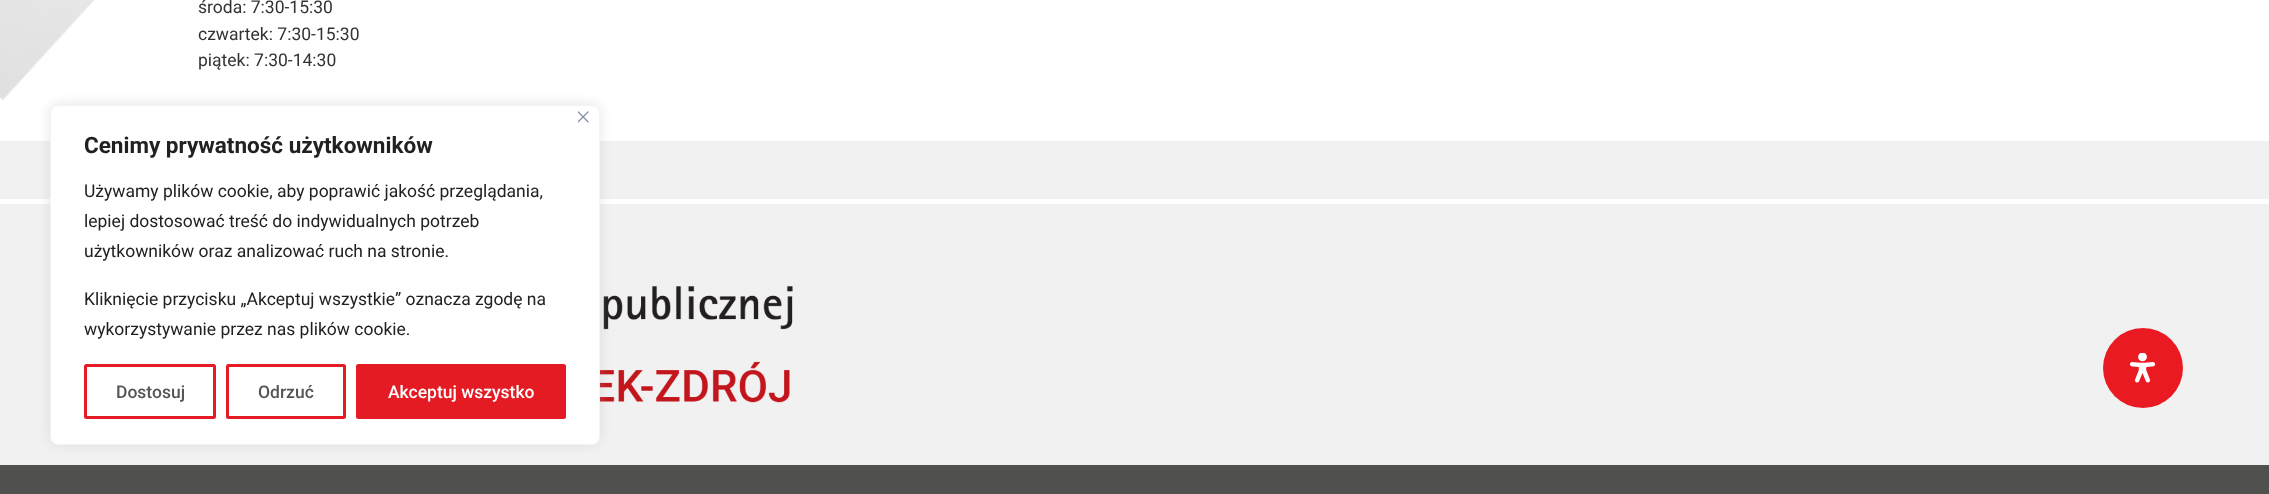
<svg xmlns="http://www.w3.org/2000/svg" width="2269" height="494">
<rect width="100%" height="100%" fill="#fff"/>
<image x="0" y="0" width="95" height="101" href="media/1.png"/>
<text x="198" y="13" style="font-family:Roboto;font-size:17.5px;fill:#323232">środa: 7:30-15:30</text>
<text x="198" y="40" style="font-family:Roboto;font-size:17.5px;fill:#323232">czwartek: 7:30-15:30</text>
<text x="198" y="66" style="font-family:Roboto;font-size:17.5px;fill:#323232">piątek: 7:30-14:30</text>
<rect y="141" width="2269" height="58" fill="#f1f1f1"/>
<rect y="204" width="2269" height="261" fill="#f1f1f1"/>
<image x="600" y="286" width="193" height="117" href="media/2.png"/>
<rect y="465" width="2269" height="29" fill="#50504f"/>
<rect x="50" y="104" width="550" height="340" rx="8" fill="#acabab4d" filter="blur(6px)"/>
<rect x="50.5" y="105.5" width="549" height="339" rx="7.5" fill="#fff" stroke="#f4f4f4"/>
<image x="578" y="111" width="11" height="12" href="media/3.png"/>
<text x="84" y="153" style="font-family:Roboto;font-size:22.5px;font-weight:bold;fill:#212121">Cenimy prywatność użytkowników</text>
<text x="84" y="197" style="font-family:Roboto;font-size:17.5px;fill:#212121">Używamy plików cookie, aby poprawić jakość przeglądania,</text>
<text x="84" y="227" style="font-family:Roboto;font-size:17.5px;fill:#212121">lepiej dostosować treść do indywidualnych potrzeb</text>
<text x="84" y="257" style="font-family:Roboto;font-size:17.5px;fill:#212121">użytkowników oraz analizować ruch na stronie.</text>
<text x="84" y="305" style="font-family:Roboto;font-size:17.5px;fill:#212121">Kliknięcie przycisku „Akceptuj wszystkie” oznacza zgodę na</text>
<text x="84" y="335" style="font-family:Roboto;font-size:17.5px;fill:#212121">wykorzystywanie przez nas plików cookie.</text>
<rect x="85.5" y="365.5" width="129" height="52" rx="1" fill="none" stroke="#e41b23" stroke-width="3"/>
<text x="116" y="398" style="font-family:Roboto;font-size:17.5px;font-weight:500;fill:#555">Dostosuj</text>
<rect x="227.5" y="365.5" width="117" height="52" rx="1" fill="none" stroke="#e41b23" stroke-width="3"/>
<text x="258" y="398" style="font-family:Roboto;font-size:17.5px;font-weight:500;fill:#555">Odrzuć</text>
<rect x="357.5" y="365.5" width="207" height="52" rx="1" fill="#e41b23" stroke="#e41b23" stroke-width="3"/>
<text x="388" y="398" style="font-family:Roboto;font-size:17.5px;font-weight:500;fill:#fff">Akceptuj wszystko</text>
<circle cx="2143" cy="368" r="40" fill="#ea1a22"/>
<image x="2130" y="353" width="25" height="30" href="media/4.png"/>
</svg>
